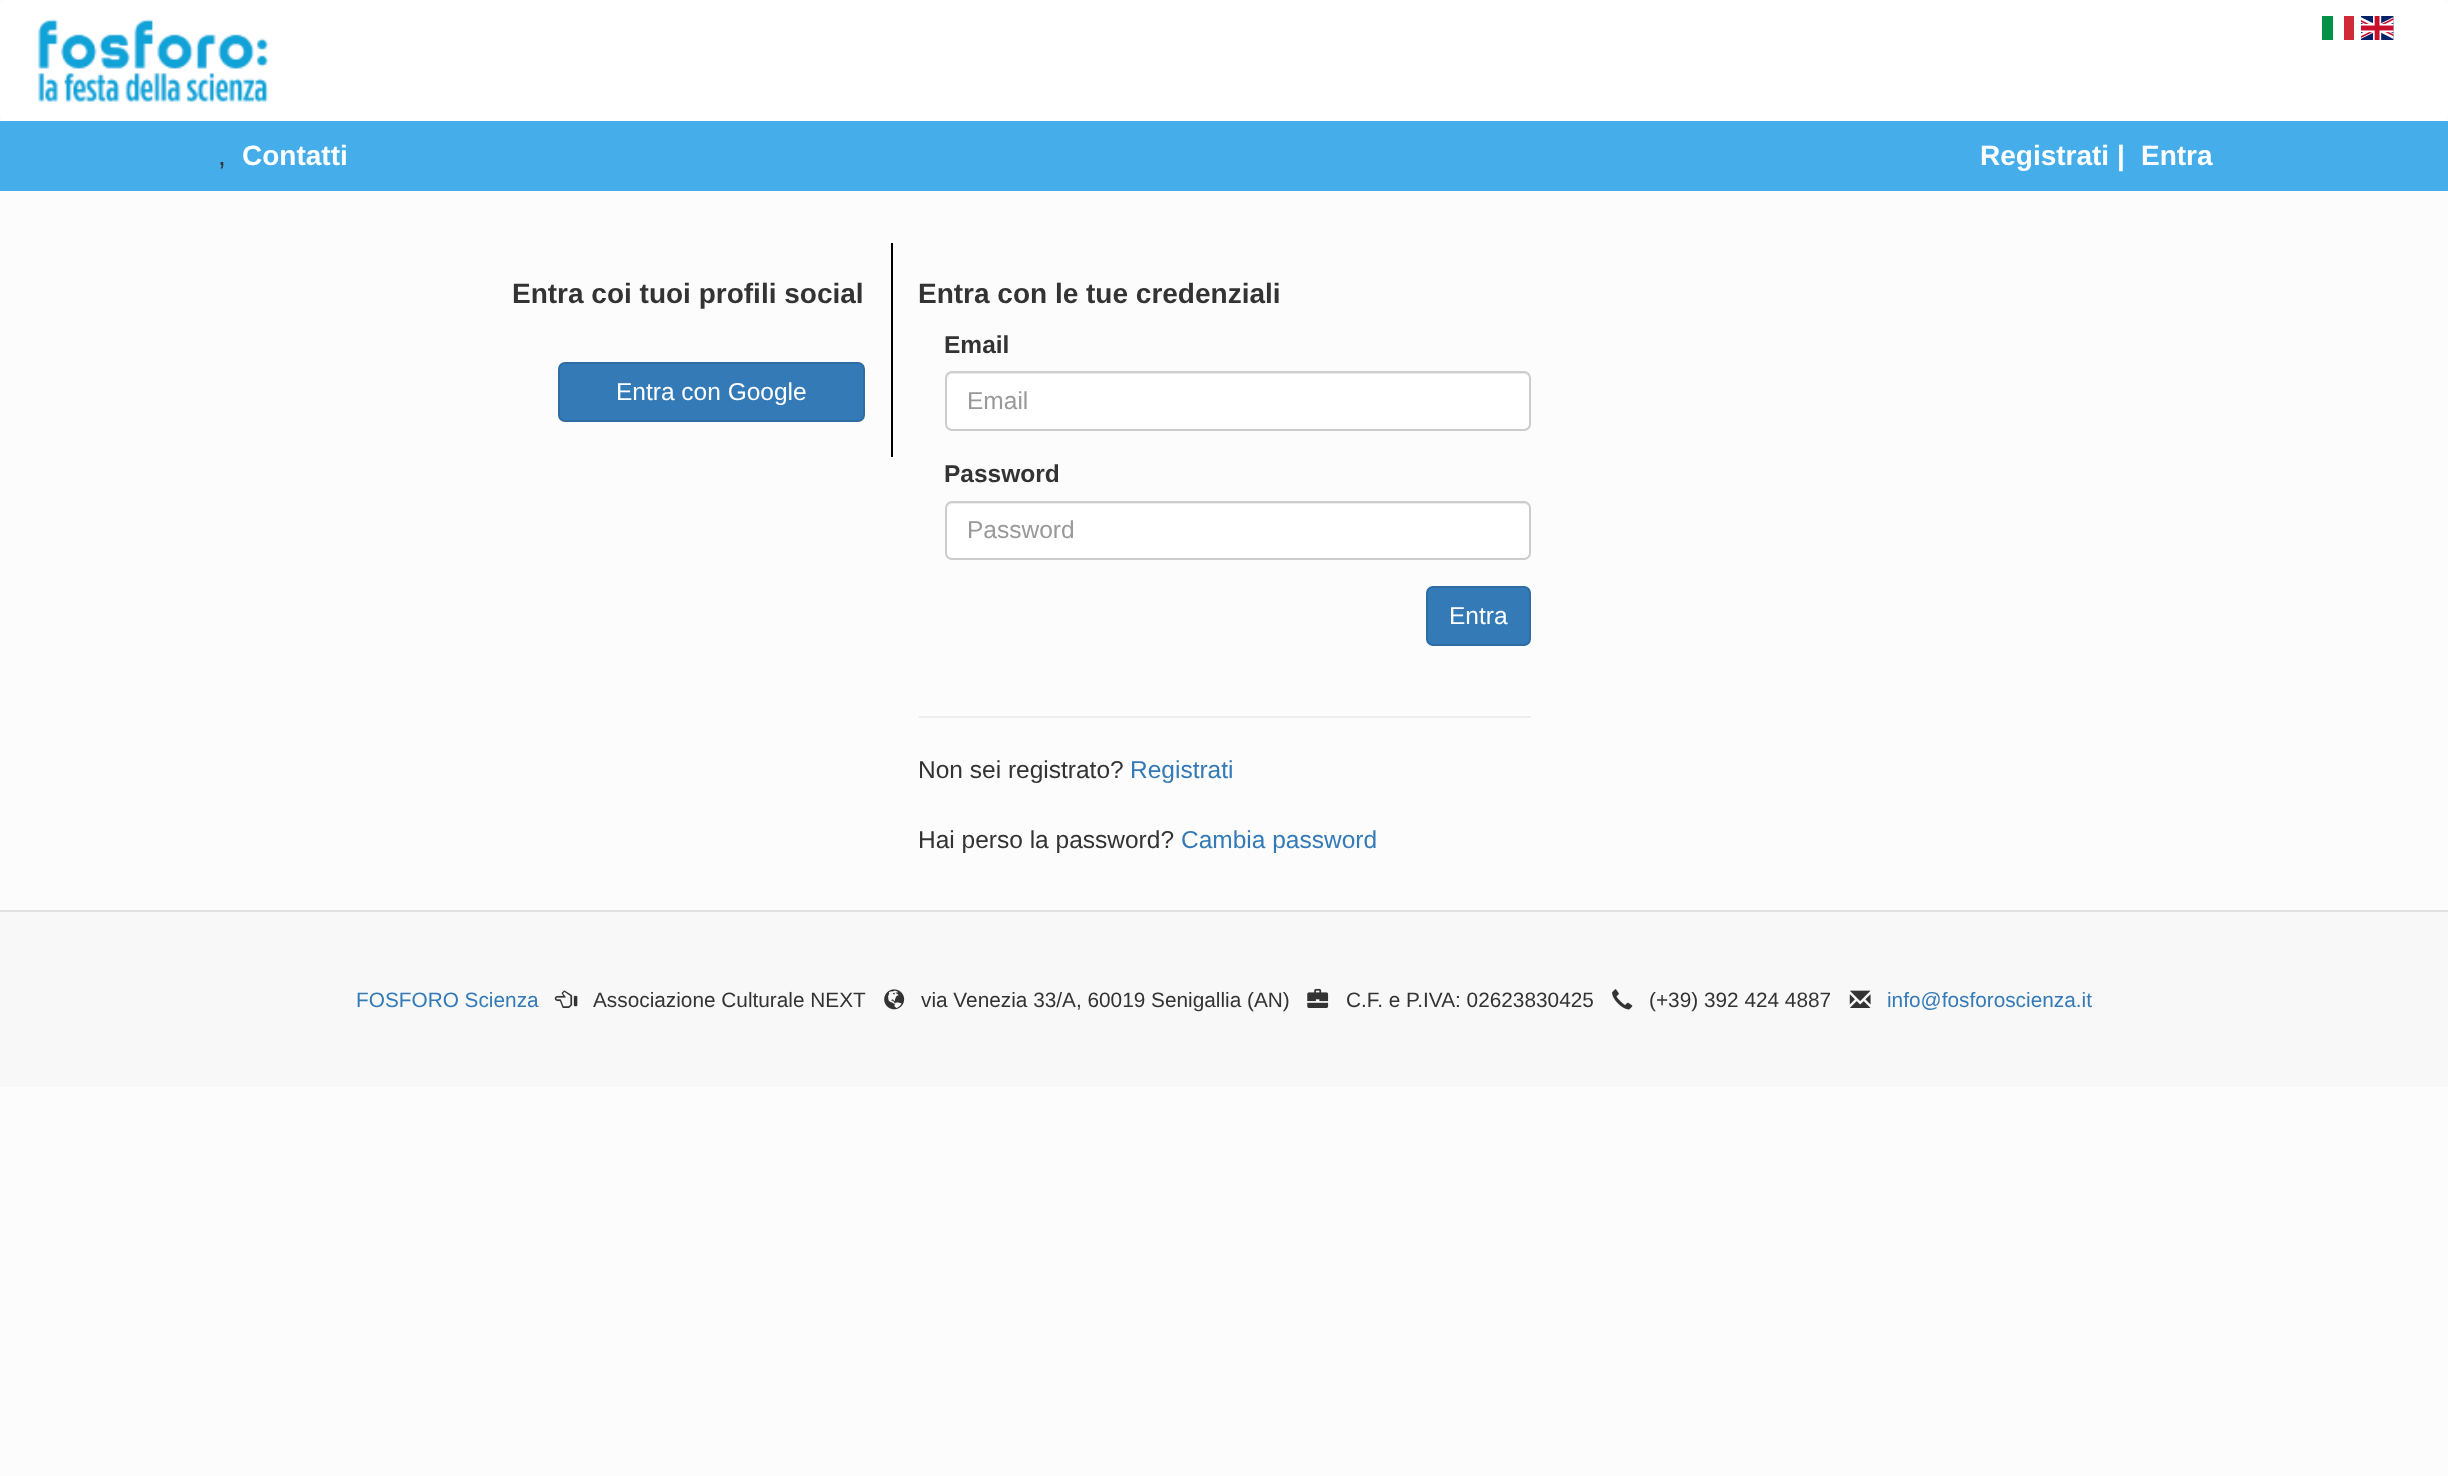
<svg xmlns="http://www.w3.org/2000/svg" width="2448" height="1476">
<rect width="100%" height="100%" fill="#fcfcfc"/>
<rect width="2448" height="121" rx="7" fill="#fff"/>
<image x="38" y="19" width="231" height="83" href="media/1.png"/>
<rect x="2322" y="16" width="11" height="24" fill="#009246"/>
<rect x="2344" y="16" width="10" height="24" fill="#ce2b37"/>
<image x="2361" y="16" width="33" height="24" href="media/2.png"/>
<rect y="121" width="2448" height="70" fill="#45aeea"/>
<text x="218" y="165" style="font-family:Liberation Sans;font-size:28px;fill:#333">,</text>
<text x="242" y="165" style="font-family:Liberation Sans;font-size:28px;font-weight:bold;fill:#fff">Contatti</text>
<text x="1980" y="165" style="font-family:Liberation Sans;font-size:28px;font-weight:bold;fill:#fff">Registrati |</text>
<text x="2141" y="165" style="font-family:Liberation Sans;font-size:28px;font-weight:bold;fill:#fff">Entra</text>
<rect x="891" y="243" width="2" height="214" fill="#000"/>
<text x="512" y="303" style="font-family:Liberation Sans;font-size:28px;font-weight:bold;fill:#333">Entra coi tuoi profili social</text>
<rect x="559" y="363" width="305" height="58" rx="6" fill="#337ab7" stroke="#2e6da4" stroke-width="2"/>
<text x="616" y="400" style="font-family:Liberation Sans;font-size:24.5px;fill:#fff">Entra con Google</text>
<text x="918" y="303" style="font-family:Liberation Sans;font-size:28px;font-weight:bold;fill:#333">Entra con le tue credenziali</text>
<text x="944" y="353" style="font-family:Liberation Sans;font-size:24.5px;font-weight:bold;fill:#333">Email</text>
<rect x="945" y="371" width="586" height="60" rx="7" fill="#fff"/>
<path d="M952 374h572c3 0 6 3 6 6v-2c0-3-2-5-5-5h-573c-3 0-5 2-5 5v2c0-3 2-6 5-6z" fill="#ececec"/>
<rect x="946" y="372" width="584" height="58" rx="6" fill="none" stroke="#ccc" stroke-width="2"/>
<text x="967" y="409" style="font-family:Liberation Sans;font-size:24.5px;fill:#999">Email</text>
<text x="944" y="482" style="font-family:Liberation Sans;font-size:24.5px;font-weight:bold;fill:#333">Password</text>
<rect x="945" y="501" width="586" height="59" rx="7" fill="#fff"/>
<path d="M952 504h572c3 0 6 2 6 5v-2c0-3-2-5-5-5h-573c-3 0-5 2-5 5v2c0-3 2-5 5-5z" fill="#ececec"/>
<rect x="946" y="502" width="584" height="57" rx="6" fill="none" stroke="#ccc" stroke-width="2"/>
<text x="967" y="538" style="font-family:Liberation Sans;font-size:24.5px;fill:#999">Password</text>
<rect x="1427" y="587" width="103" height="58" rx="6" fill="#337ab7" stroke="#2e6da4" stroke-width="2"/>
<text x="1449" y="624" style="font-family:Liberation Sans;font-size:24.5px;fill:#fff">Entra</text>
<rect x="919" y="716" width="612" height="2" fill="#eee"/>
<text x="918" y="778" style="font-family:Liberation Sans;font-size:24.5px;fill:#333">Non sei registrato?</text>
<text x="1130" y="778" style="font-family:Liberation Sans;font-size:24.5px;fill:#337ab7">Registrati</text>
<text x="918" y="848" style="font-family:Liberation Sans;font-size:24.5px;fill:#333">Hai perso la password?</text>
<text x="1181" y="848" style="font-family:Liberation Sans;font-size:24.5px;fill:#337ab7">Cambia password</text>
<rect y="912" width="2448" height="175" fill="#f8f8f8"/>
<rect y="910" width="2448" height="2" fill="#e0e0e0"/>
<text x="356" y="1007" style="font-family:Liberation Sans;font-size:20.8px;fill:#337ab7">FOSFORO Scienza</text>
<image x="554" y="990" width="24" height="18" href="media/3.png"/>
<text x="593" y="1007" style="font-family:Liberation Sans;font-size:20.8px;fill:#333">Associazione Culturale NEXT</text>
<image x="884" y="989" width="21" height="21" href="media/4.png"/>
<text x="921" y="1007" style="font-family:Liberation Sans;font-size:20.8px;fill:#333">via Venezia 33/A, 60019 Senigallia (AN)</text>
<image x="1307" y="988" width="22" height="20" href="media/5.png"/>
<text x="1346" y="1007" style="font-family:Liberation Sans;font-size:20.8px;fill:#333">C.F. e P.IVA: 02623830425</text>
<image x="1612" y="989" width="21" height="21" href="media/6.png"/>
<text x="1649" y="1007" style="font-family:Liberation Sans;font-size:20.8px;fill:#333">(+39) 392 424 4887</text>
<image x="1849" y="990" width="22" height="18" href="media/7.png"/>
<text x="1887" y="1007" style="font-family:Liberation Sans;font-size:20.8px;fill:#337ab7">info@fosforoscienza.it</text>
</svg>
